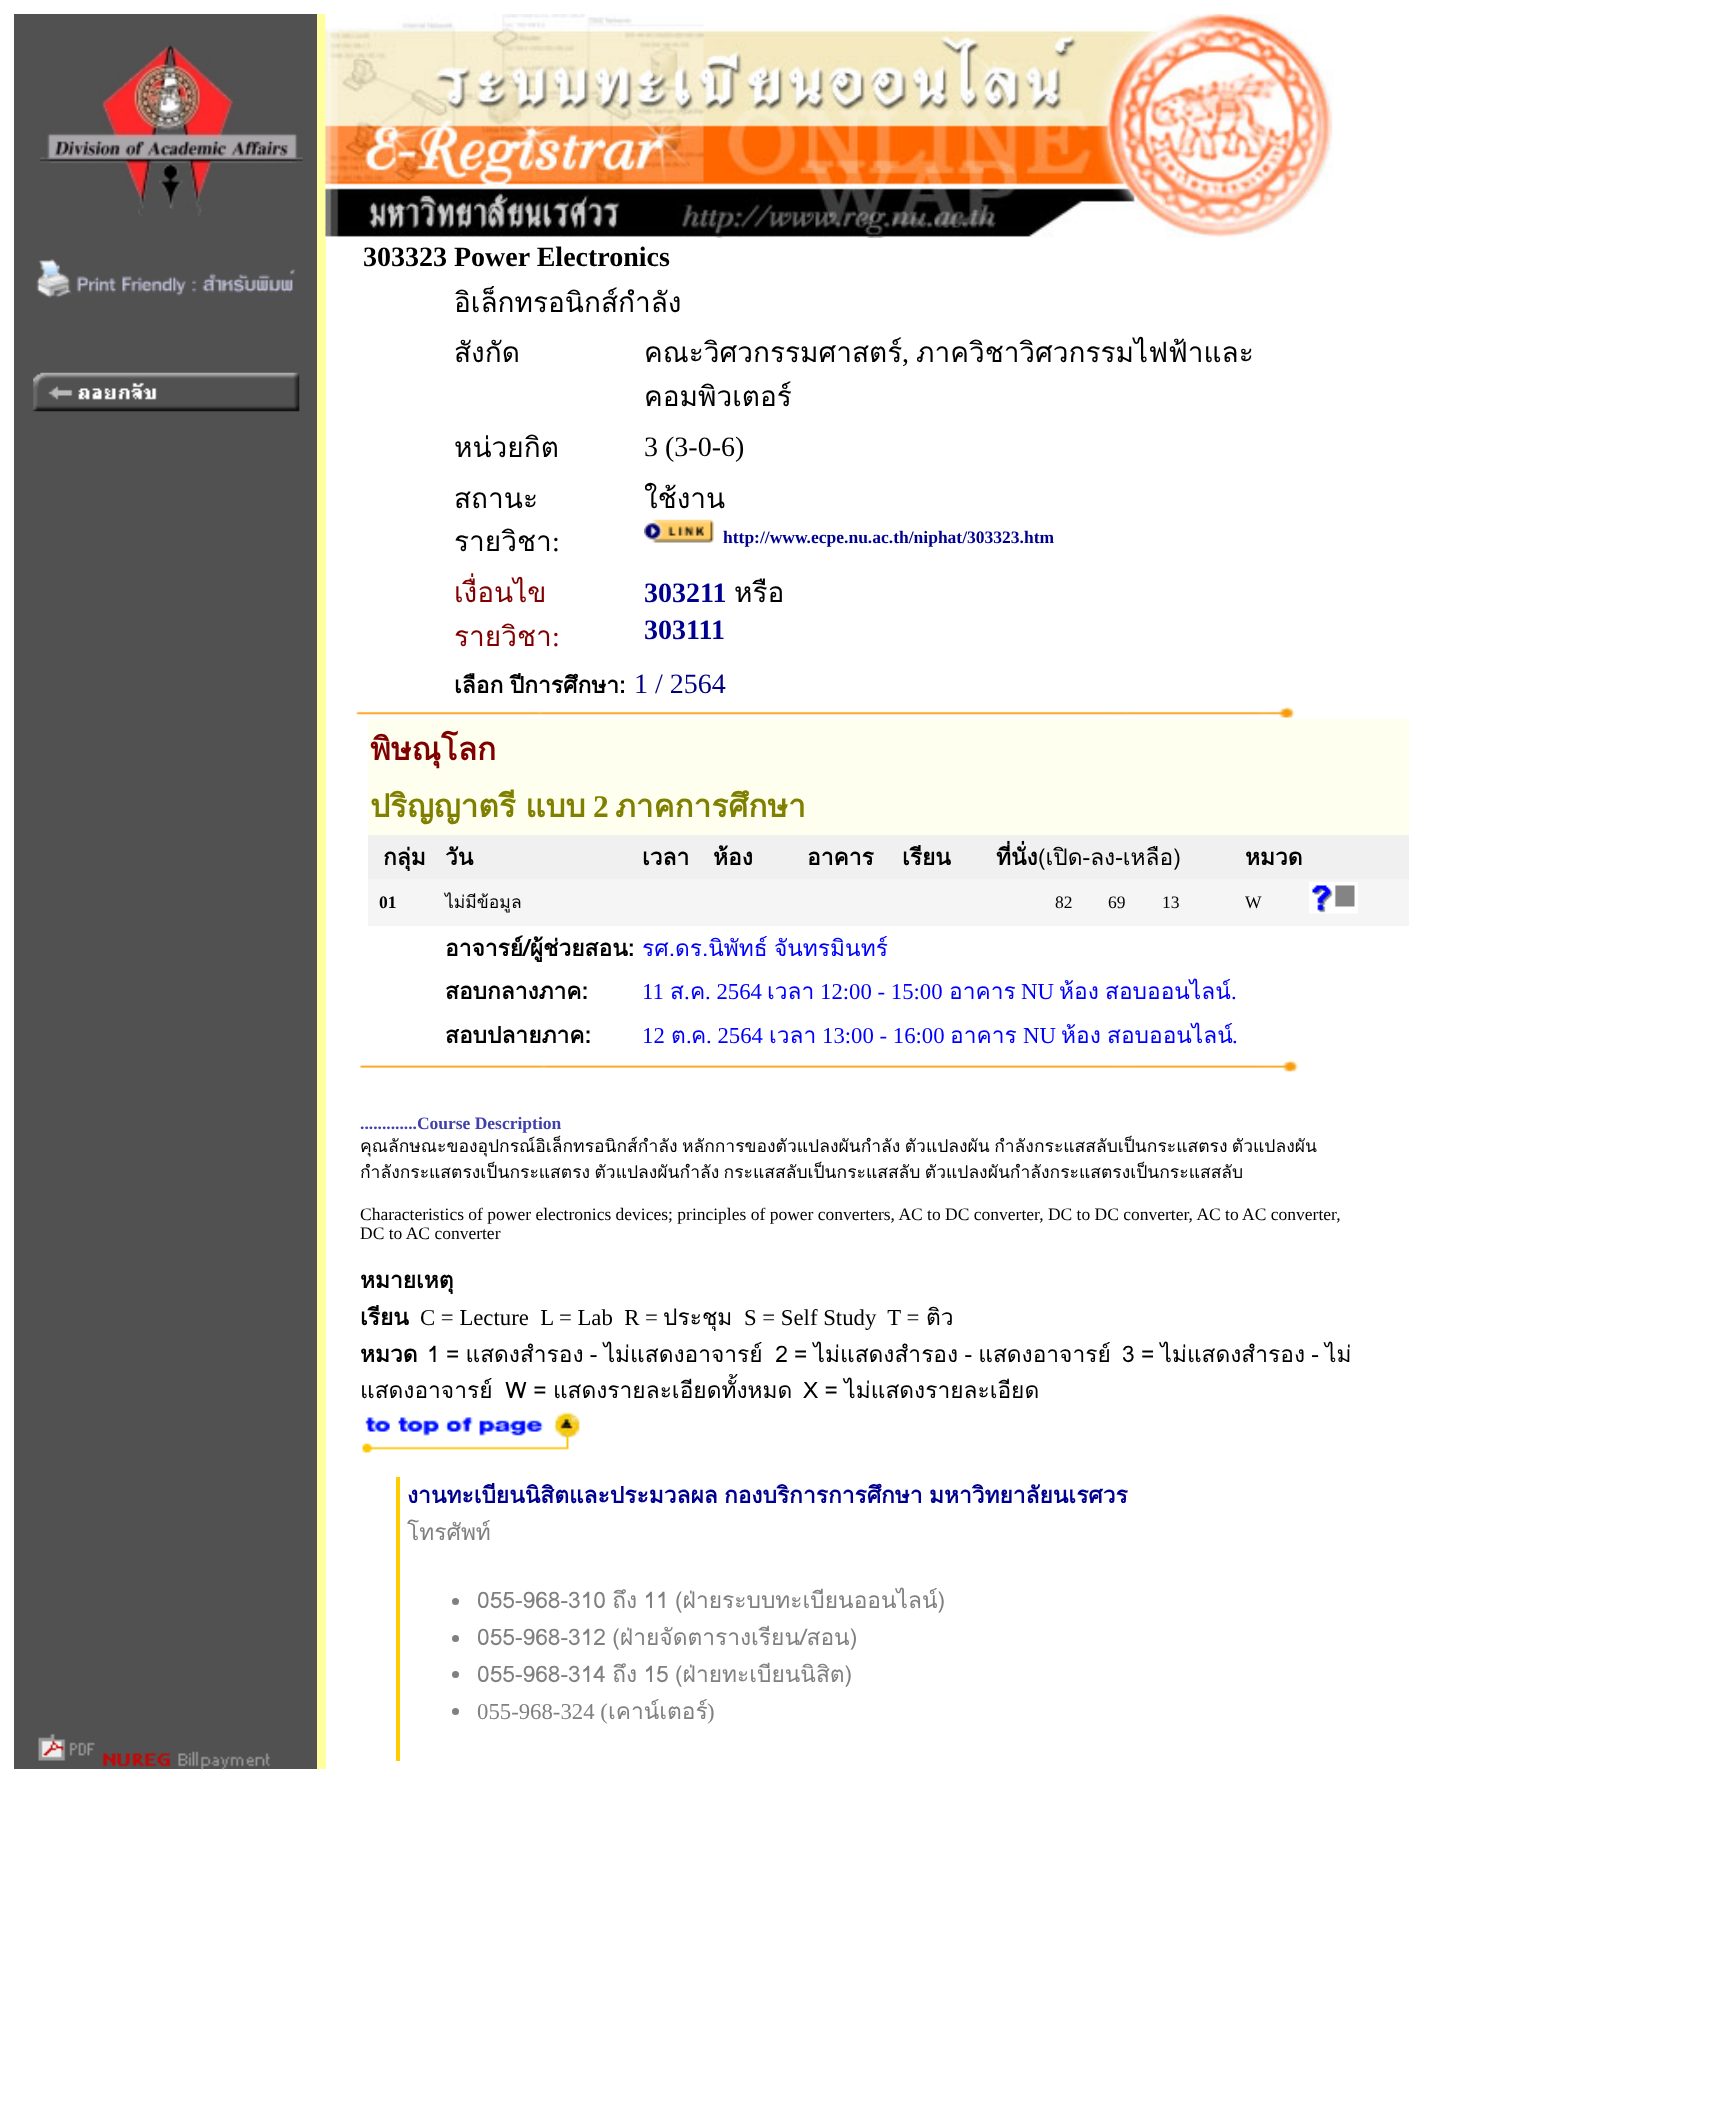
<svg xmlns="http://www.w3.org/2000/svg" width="1726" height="2126">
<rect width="100%" height="100%" fill="#fff"/>
<rect x="14" y="14" width="303" height="1755" fill="#515151"/>
<image x="40" y="45" width="263" height="172" href="media/1.png"/>
<image x="36" y="259" width="260" height="39" href="media/2.png"/>
<image x="33" y="372" width="267" height="40" href="media/3.png"/>
<rect x="317" y="14" width="9" height="1755" fill="#ffffa0"/>
<image x="325" y="14" width="1009" height="224" href="media/4.png"/>
<text x="363" y="266" style="font-family:Liberation Serif;font-size:28px;font-weight:bold;fill:#000">303323 Power Electronics</text>
<text x="454" y="312" style="font-family:Loma;font-size:28px;fill:#000">อิเล็กทรอนิกส์กำลัง</text>
<text x="454" y="362" style="font-family:Loma;font-size:28px;fill:#000">สังกัด</text>
<text x="644" y="362" style="font-family:Loma;font-size:28px;fill:#000">คณะวิศวกรรมศาสตร์</text>
<text x="902" y="362" style="font-family:Liberation Serif;font-size:28px;fill:#000">,</text>
<text x="916" y="362" style="font-family:Loma;font-size:28px;fill:#000">ภาควิชาวิศวกรรมไฟฟ้าและ</text>
<text x="644" y="406" style="font-family:Loma;font-size:28px;fill:#000">คอมพิวเตอร์</text>
<text x="454" y="457" style="font-family:Loma;font-size:28px;fill:#000">หน่วยกิต</text>
<text x="644" y="456" style="font-family:Liberation Serif;font-size:28px;fill:#000">3 (3-0-6)</text>
<text x="454" y="508" style="font-family:Loma;font-size:28px;fill:#000">สถานะ</text>
<text x="454" y="551" style="font-family:Loma;font-size:28px;fill:#000">รายวิชา</text>
<text x="552" y="551" style="font-family:Liberation Serif;font-size:28px;fill:#000">:</text>
<text x="644" y="508" style="font-family:Loma;font-size:28px;fill:#000">ใช้งาน</text>
<image x="644" y="519" width="70" height="24" href="media/5.png"/>
<text x="723" y="543" style="font-family:Liberation Serif;font-size:17.5px;font-weight:bold;fill:#000090">http://www.ecpe.nu.ac.th/niphat/303323.htm</text>
<text x="454" y="602" style="font-family:Loma;font-size:28px;fill:#800000">เงื่อนไข</text>
<text x="454" y="646" style="font-family:Loma;font-size:28px;fill:#800000">รายวิชา</text>
<text x="552" y="646" style="font-family:Liberation Serif;font-size:28px;fill:#800000">:</text>
<text x="644" y="602" style="font-family:Liberation Serif;font-size:28px;font-weight:bold;fill:#000090">303211</text>
<text x="734" y="602" style="font-family:Loma;font-size:28px;fill:#000">หรือ</text>
<text x="644" y="639" style="font-family:Liberation Serif;font-size:28px;font-weight:bold;fill:#000090">303111</text>
<text x="454" y="693" word-spacing="-1" style="font-family:Loma;font-size:22.75px;font-weight:bold;fill:#000">เลือก ปีการศึกษา:</text>
<text x="634" y="693" style="font-family:Liberation Serif;font-size:28px;fill:#000080">1 / 2564</text>
<image x="356" y="707" width="939" height="11" href="media/6.png"/>
<rect x="368" y="719" width="1041" height="116" fill="#fffff0"/>
<text x="370" y="760" style="font-family:Loma;font-size:31.5px;font-weight:bold;fill:#800000">พิษณุโลก</text>
<text x="370" y="817" word-spacing="-1" style="font-family:Loma;font-size:31.5px;font-weight:bold;fill:#808000">ปริญญาตรี แบบ</text>
<text x="593" y="817" style="font-family:Liberation Serif;font-size:31.5px;font-weight:bold;fill:#808000">2</text>
<text x="615" y="817" style="font-family:Loma;font-size:31.5px;font-weight:bold;fill:#808000">ภาคการศึกษา</text>
<rect x="368" y="835" width="1041" height="44" fill="#f0f0f0"/>
<text x="383" y="865" style="font-family:Loma;font-size:22.75px;font-weight:bold;fill:#000">กลุ่ม</text>
<text x="445" y="865" style="font-family:Loma;font-size:22.75px;font-weight:bold;fill:#000">วัน</text>
<text x="642" y="865" style="font-family:Loma;font-size:22.75px;font-weight:bold;fill:#000">เวลา</text>
<text x="713" y="865" style="font-family:Loma;font-size:22.75px;font-weight:bold;fill:#000">ห้อง</text>
<text x="807" y="865" style="font-family:Loma;font-size:22.75px;font-weight:bold;fill:#000">อาคาร</text>
<text x="902" y="865" style="font-family:Loma;font-size:22.75px;font-weight:bold;fill:#000">เรียน</text>
<text x="996" y="865" style="font-family:Loma;font-size:22.75px;font-weight:bold;fill:#000">ที่นั่ง</text>
<text x="1038" y="865" style="font-family:Loma;font-size:22.75px;fill:#000">(เปิด-ลง-เหลือ)</text>
<text x="1245" y="865" style="font-family:Loma;font-size:22.75px;font-weight:bold;fill:#000">หมวด</text>
<rect x="368" y="879" width="1041" height="47" fill="#f5f5f5"/>
<text x="379" y="908" style="font-family:Liberation Serif;font-size:17.5px;font-weight:bold;fill:#000">01</text>
<text x="445" y="908" style="font-family:Loma;font-size:17.5px;fill:#000">ไม่มีข้อมูล</text>
<text x="1055" y="908" style="font-family:Liberation Serif;font-size:17.5px;fill:#000">82</text>
<text x="1108" y="908" style="font-family:Liberation Serif;font-size:17.5px;fill:#000">69</text>
<text x="1162" y="908" style="font-family:Liberation Serif;font-size:17.5px;fill:#000">13</text>
<text x="1245" y="908" style="font-family:Liberation Serif;font-size:17.5px;fill:#000">W</text>
<image x="1309" y="882" width="49" height="32" href="media/7.png"/>
<text x="445" y="956" style="font-family:Loma;font-size:22.75px;font-weight:bold;fill:#000">อาจารย์/ผู้ช่วยสอน:</text>
<text x="642" y="956" word-spacing="-1.4" style="font-family:Loma;font-size:22.75px;fill:#00f">รศ.ดร.นิพัทธ์ จันทรมินทร์</text>
<text x="445" y="999" style="font-family:Loma;font-size:22.75px;font-weight:bold;fill:#000">สอบกลางภาค:</text>
<text x="642" y="999" style="font-family:Liberation Serif;font-size:22.75px;fill:#00f">11</text>
<text x="670" y="999" style="font-family:Loma;font-size:22.75px;fill:#00f">ส</text>
<text x="684" y="999" style="font-family:Liberation Serif;font-size:22.75px;fill:#00f">.</text>
<text x="690" y="999" style="font-family:Loma;font-size:22.75px;fill:#00f">ค</text>
<text x="705" y="999" style="font-family:Liberation Serif;font-size:22.75px;fill:#00f">. 2564</text>
<text x="767" y="999" style="font-family:Loma;font-size:22.75px;fill:#00f">เวลา</text>
<text x="820" y="999" style="font-family:Liberation Serif;font-size:22.75px;fill:#00f">12:00 - 15:00</text>
<text x="949" y="999" style="font-family:Loma;font-size:22.75px;fill:#00f">อาคาร</text>
<text x="1021" y="999" style="font-family:Liberation Serif;font-size:22.75px;fill:#00f">NU</text>
<text x="1059" y="999" style="font-family:Loma;font-size:22.75px;fill:#00f">ห้อง</text>
<text x="1105" y="999" style="font-family:Loma;font-size:22.75px;fill:#00f">สอบออนไลน์</text>
<text x="1231" y="999" style="font-family:Liberation Serif;font-size:22.75px;fill:#00f">.</text>
<text x="445" y="1043" style="font-family:Loma;font-size:22.75px;font-weight:bold;fill:#000">สอบปลายภาค:</text>
<text x="642" y="1043" style="font-family:Liberation Serif;font-size:22.75px;fill:#00f">12</text>
<text x="671" y="1043" style="font-family:Loma;font-size:22.75px;fill:#00f">ต</text>
<text x="686" y="1043" style="font-family:Liberation Serif;font-size:22.75px;fill:#00f">.</text>
<text x="691" y="1043" style="font-family:Loma;font-size:22.75px;fill:#00f">ค</text>
<text x="706" y="1043" style="font-family:Liberation Serif;font-size:22.75px;fill:#00f">. 2564</text>
<text x="769" y="1043" style="font-family:Loma;font-size:22.75px;fill:#00f">เวลา</text>
<text x="822" y="1043" style="font-family:Liberation Serif;font-size:22.75px;fill:#00f">13:00 - 16:00</text>
<text x="950" y="1043" style="font-family:Loma;font-size:22.75px;fill:#00f">อาคาร</text>
<text x="1023" y="1043" style="font-family:Liberation Serif;font-size:22.75px;fill:#00f">NU</text>
<text x="1061" y="1043" style="font-family:Loma;font-size:22.75px;fill:#00f">ห้อง</text>
<text x="1107" y="1043" style="font-family:Loma;font-size:22.75px;fill:#00f">สอบออนไลน์</text>
<text x="1232" y="1043" style="font-family:Liberation Serif;font-size:22.75px;fill:#00f">.</text>
<image x="359" y="1060" width="940" height="12" href="media/8.png"/>
<text x="360" y="1129" style="font-family:Liberation Serif;font-size:17.5px;font-weight:bold;fill:#4040aa">.............Course Description</text>
<text x="360" y="1152" word-spacing="-1.5" style="font-family:Loma;font-size:17.5px;fill:#000">คุณลักษณะของอุปกรณ์อิเล็กทรอนิกส์กำลัง หลักการของตัวแปลงผันกำลัง ตัวแปลงผัน กำลังกระแสสลับเป็นกระแสตรง ตัวแปลงผัน</text>
<text x="360" y="1178" word-spacing="-1.5" style="font-family:Loma;font-size:17.5px;fill:#000">กำลังกระแสตรงเป็นกระแสตรง ตัวแปลงผันกำลัง กระแสสลับเป็นกระแสสลับ ตัวแปลงผันกำลังกระแสตรงเป็นกระแสสลับ</text>
<text x="360" y="1220" style="font-family:Liberation Serif;font-size:17.5px;fill:#000">Characteristics of power electronics devices; principles of power converters, AC to DC converter, DC to DC converter, AC to AC converter,</text>
<text x="360" y="1239" style="font-family:Liberation Serif;font-size:17.5px;fill:#000">DC to AC converter</text>
<text x="360" y="1288" style="font-family:Loma;font-size:22.75px;font-weight:bold;fill:#000">หมายเหตุ</text>
<text x="360" y="1325" style="font-family:Loma;font-size:22.75px;font-weight:bold;fill:#000">เรียน</text>
<text x="420" y="1325" style="font-family:Liberation Serif;font-size:22.75px;fill:#000" xml:space="preserve">C = Lecture  L = Lab  R =</text>
<text x="663" y="1325" style="font-family:Loma;font-size:22.75px;fill:#000">ประชุม</text>
<text x="744" y="1325" style="font-family:Liberation Serif;font-size:22.75px;fill:#000" xml:space="preserve">S = Self Study  T =</text>
<text x="926" y="1325" style="font-family:Loma;font-size:22.75px;fill:#000">ติว</text>
<text x="360" y="1362" style="font-family:Loma;font-size:22.75px;font-weight:bold;fill:#000">หมวด</text>
<text x="427" y="1362" word-spacing="-1.4" style="font-family:Loma;font-size:22.75px;fill:#000" xml:space="preserve">1 = แสดงสำรอง - ไม่แสดงอาจารย์  2 = ไม่แสดงสำรอง - แสดงอาจารย์</text>
<text x="1122" y="1362" word-spacing="-1.4" style="font-family:Loma;font-size:22.75px;fill:#000">3 = ไม่แสดงสำรอง - ไม่</text>
<text x="360" y="1398" word-spacing="-1.25" style="font-family:Loma;font-size:22.75px;fill:#000" xml:space="preserve">แสดงอาจารย์  W = แสดงรายละเอียดทั้งหมด</text>
<text x="803" y="1398" word-spacing="-1.25" style="font-family:Loma;font-size:22.75px;fill:#000">X = ไม่แสดงรายละเอียด</text>
<image x="362" y="1412" width="218" height="41" href="media/9.png"/>
<rect x="396" y="1477" width="4" height="284" fill="#fc0"/>
<text x="407" y="1503" word-spacing="-1.4" style="font-family:Loma;font-size:22.75px;font-weight:bold;fill:#000090">งานทะเบียนนิสิตและประมวลผล กองบริการการศึกษา มหาวิทยาลัยนเรศวร</text>
<text x="407" y="1540" style="font-family:Loma;font-size:22.75px;fill:#808080">โทรศัพท์</text>
<circle cx="455.5" cy="1601.5" r="3.5" fill="#808080"/>
<text x="477" y="1608" word-spacing="-1.4" style="font-family:Loma;font-size:22.75px;fill:#808080">055-968-310 ถึง 11 (ฝ่ายระบบทะเบียนออนไลน์)</text>
<circle cx="455.5" cy="1638.5" r="3.5" fill="#808080"/>
<text x="477" y="1645" word-spacing="-1.4" style="font-family:Loma;font-size:22.75px;fill:#808080">055-968-312 (ฝ่ายจัดตารางเรียน/สอน)</text>
<circle cx="455.5" cy="1674.5" r="3.5" fill="#808080"/>
<text x="477" y="1682" word-spacing="-1.4" style="font-family:Loma;font-size:22.75px;fill:#808080">055-968-314 ถึง 15 (ฝ่ายทะเบียนนิสิต)</text>
<circle cx="455.5" cy="1711.5" r="3.5" fill="#808080"/>
<text x="477" y="1719" style="font-family:Liberation Serif;font-size:22.75px;fill:#808080">055-968-324 (</text>
<text x="608" y="1719" style="font-family:Loma;font-size:22.75px;fill:#808080">เคาน์เตอร์</text>
<text x="707" y="1719" style="font-family:Liberation Serif;font-size:22.75px;fill:#808080">)</text>
<image x="38" y="1733" width="232" height="37" href="media/10.png"/>
</svg>
